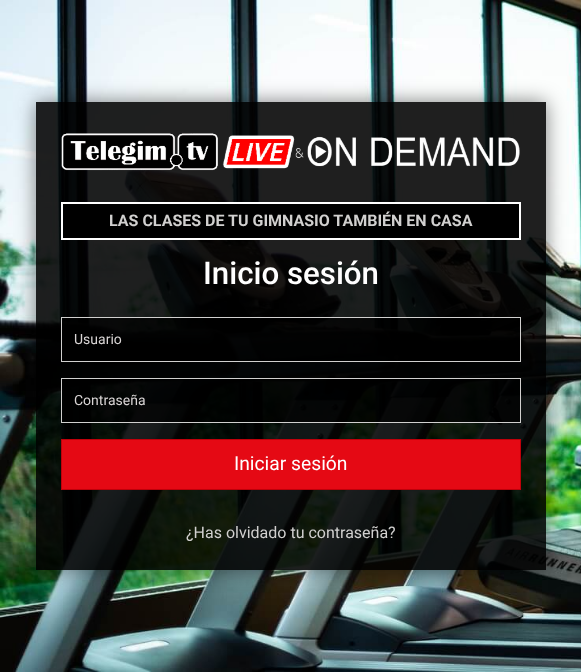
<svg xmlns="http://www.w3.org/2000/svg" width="581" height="672">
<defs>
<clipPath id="clip1"><path d="M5 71h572v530h-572zm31 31h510v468h-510z" clip-rule="evenodd"/></clipPath>
</defs>
<rect width="100%" height="100%" fill="#fff"/>
<image x="0" y="0" width="581" height="672" href="media/1.png"/>
<g clip-path="url(#clip1)">
<rect x="36" y="102" width="510" height="468" fill="#00000080" filter="blur(10px)"/>
</g>
<rect x="36" y="102" width="510" height="468" fill="#000000e0"/>
<image x="61" y="133" width="459" height="38" href="media/2.png"/>
<rect x="64" y="204" width="455" height="34" fill="#000"/>
<rect x="62" y="203" width="458" height="36" fill="none" stroke="#fff" stroke-width="2"/>
<text x="109" y="226" style="font-family:Roboto;font-size:16px;font-weight:bold;fill:#d1d0cf">LAS CLASES DE TU GIMNASIO TAMBIÉN EN CASA</text>
<text x="203" y="284" style="font-family:Roboto;font-size:31.25px;font-weight:500;fill:#fff">Inicio sesión</text>
<rect x="61.5" y="317.5" width="459" height="44" fill="#000000b5" stroke="#d1d0cf"/>
<text x="74" y="344" style="font-family:Roboto;font-size:14px;fill:#d9d5d5">Usuario</text>
<rect x="61.5" y="378.5" width="459" height="44" fill="#000000b5" stroke="#d1d0cf"/>
<text x="74" y="405" style="font-family:Roboto;font-size:14px;fill:#d9d5d5">Contraseña</text>
<rect x="61" y="439" width="460" height="51" fill="#bf000a"/>
<rect x="62" y="440" width="458" height="49" fill="#e50914"/>
<text x="234" y="470" style="font-family:Roboto;font-size:19.25px;fill:#fff">Iniciar sesión</text>
<text x="186" y="538" style="font-family:Roboto;font-size:16px;fill:#d1d0cf">¿Has olvidado tu contraseña?</text>
</svg>
